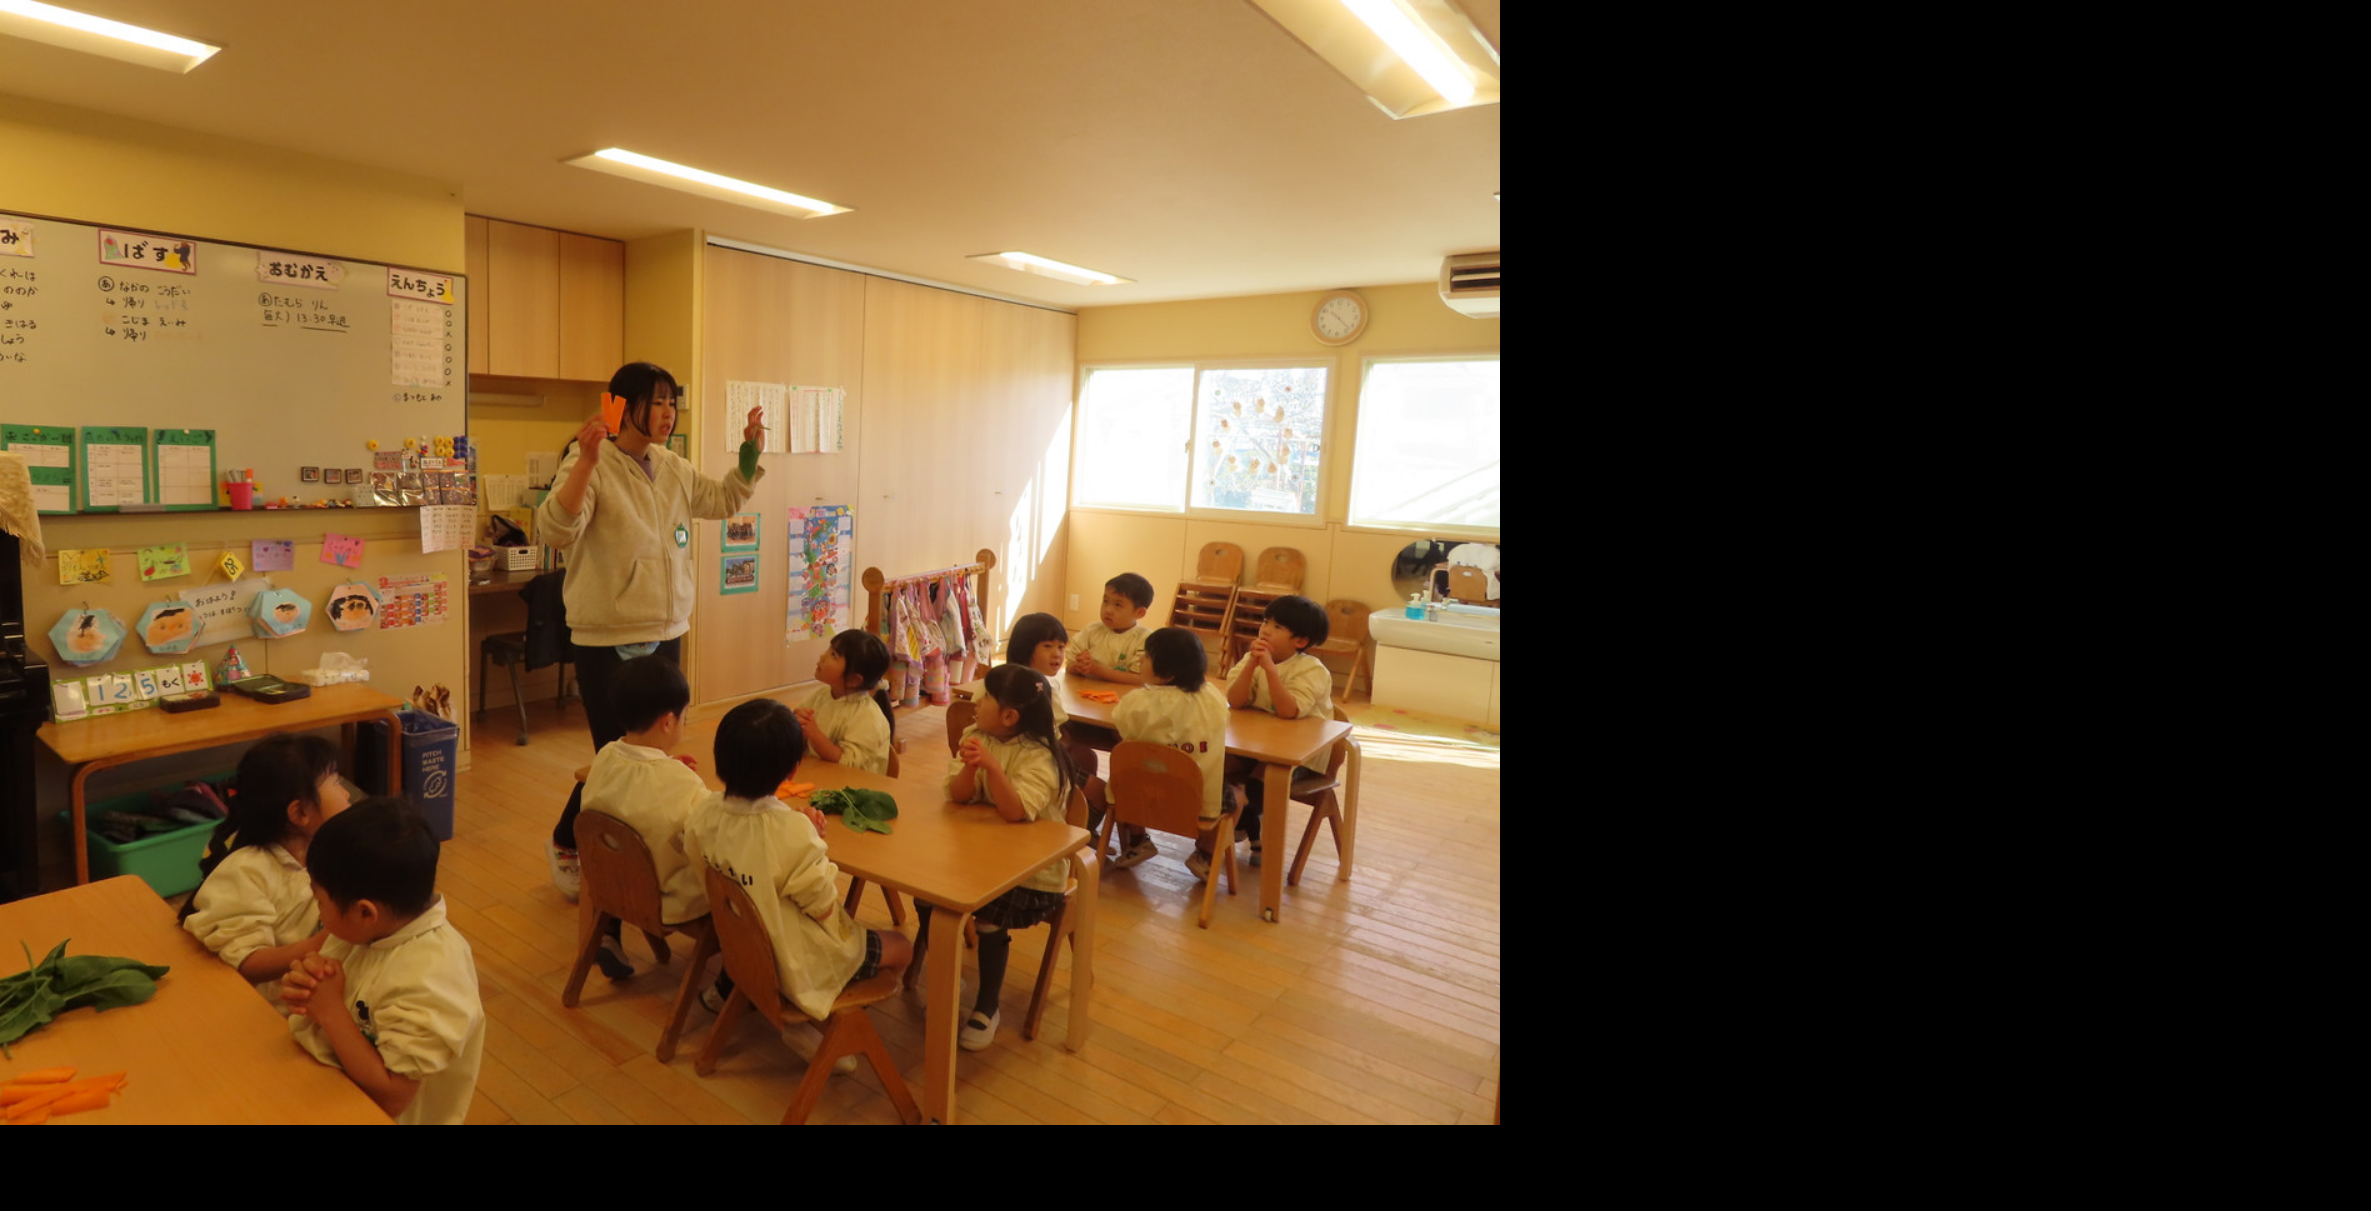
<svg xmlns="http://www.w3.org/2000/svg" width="2371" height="1211">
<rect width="100%" height="100%" fill="#000"/>
<image x="0" y="0" width="1500" height="1125" href="media/1.png"/>
</svg>
